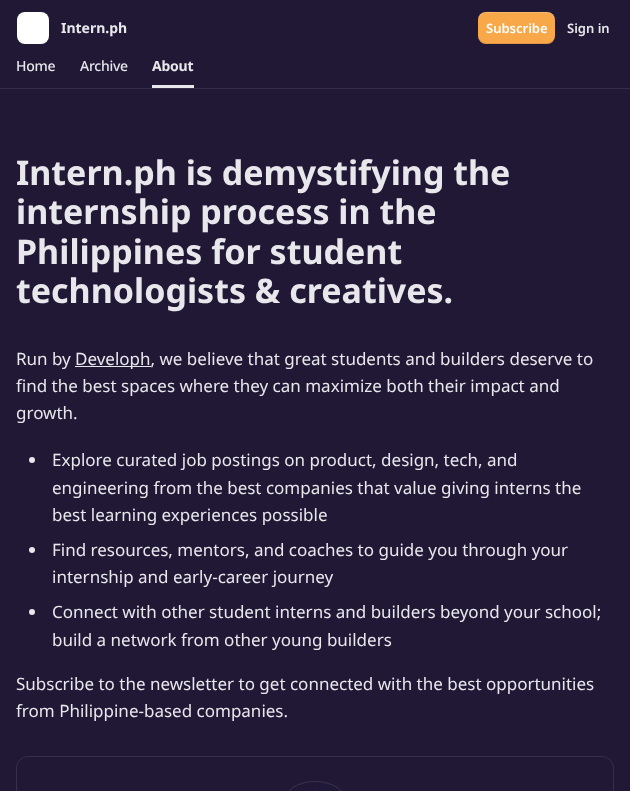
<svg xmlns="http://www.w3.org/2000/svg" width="630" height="791">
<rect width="100%" height="100%" fill="#201835"/>
<rect x="17" y="12" width="32" height="32" rx="8" fill="#fff"/>
<text x="61" y="33" style="font-family:Noto Sans;font-size:14px;font-weight:bold;fill:#e8e7eb">Intern.ph</text>
<rect x="478" y="12" width="77" height="32" rx="8" fill="#f8a848"/>
<path d="M478 35c0 11 10 9 18 9h41c8 0 18 2 18-9c0 4-4 8-8 8h-61c-4 0-8-4-8-8z" fill="#0000001a"/>
<path d="M486 13h61c4 0 8 4 8 8c0-11-10-9-18-9h-41c-8 0-18-2-18 9c0-4 4-8 8-8z" fill="#ffffff33"/>
<text x="486" y="33" style="font-family:Noto Sans;font-size:13px;font-weight:600;fill:#fff">Subscribe</text>
<text x="567" y="33" style="font-family:Noto Sans;font-size:13px;font-weight:600;fill:#e8e7eb">Sign in</text>
<rect y="88" width="630" height="1" fill="#362f49"/>
<text x="16" y="71" style="font-family:Noto Sans;font-size:14px;font-weight:500;letter-spacing:-0.25px;fill:#e8e7eb">Home</text>
<text x="80" y="71" style="font-family:Noto Sans;font-size:14px;font-weight:500;letter-spacing:-0.25px;fill:#e8e7eb">Archive</text>
<rect x="152" y="85" width="42" height="3" fill="#e8e7eb"/>
<text x="152" y="71" style="font-family:Noto Sans;font-size:14px;font-weight:bold;letter-spacing:-0.25px;fill:#e8e7eb">About</text>
<text x="16" y="185" style="font-family:Noto Sans;font-size:34px;font-weight:bold;fill:#e8e7eb">Intern.ph is demystifying the</text>
<text x="16" y="224" style="font-family:Noto Sans;font-size:34px;font-weight:bold;fill:#e8e7eb">internship process in the</text>
<text x="16" y="264" style="font-family:Noto Sans;font-size:34px;font-weight:bold;fill:#e8e7eb">Philippines for student</text>
<text x="16" y="303" style="font-family:Noto Sans;font-size:34px;font-weight:bold;fill:#e8e7eb">technologists &amp; creatives.</text>
<text x="16" y="365" style="font-family:Noto Sans;font-size:17px;fill:#e8e7eb">Run by</text>
<rect x="75" y="366" width="76" height="1" fill="#e8e7eb"/>
<text x="75" y="365" style="font-family:Noto Sans;font-size:17px;fill:#e8e7eb">Developh, we believe that great students and builders deserve to</text>
<text x="16" y="392" style="font-family:Noto Sans;font-size:17px;fill:#e8e7eb">find the best spaces where they can maximize both their impact and</text>
<text x="16" y="419" style="font-family:Noto Sans;font-size:17px;fill:#e8e7eb">growth.</text>
<circle cx="32" cy="460" r="3" fill="#e8e7eb"/>
<text x="52" y="466" style="font-family:Noto Sans;font-size:17px;fill:#e8e7eb">Explore curated job postings on product, design, tech, and</text>
<text x="52" y="494" style="font-family:Noto Sans;font-size:17px;fill:#e8e7eb">engineering from the best companies that value giving interns the</text>
<text x="52" y="521" style="font-family:Noto Sans;font-size:17px;fill:#e8e7eb">best learning experiences possible</text>
<circle cx="32" cy="550" r="3" fill="#e8e7eb"/>
<text x="52" y="556" style="font-family:Noto Sans;font-size:17px;fill:#e8e7eb">Find resources, mentors, and coaches to guide you through your</text>
<text x="52" y="583" style="font-family:Noto Sans;font-size:17px;fill:#e8e7eb">internship and early-career journey</text>
<circle cx="32" cy="612" r="3" fill="#e8e7eb"/>
<text x="52" y="618" style="font-family:Noto Sans;font-size:17px;fill:#e8e7eb">Connect with other student interns and builders beyond your school;</text>
<text x="52" y="646" style="font-family:Noto Sans;font-size:17px;fill:#e8e7eb">build a network from other young builders</text>
<text x="16" y="690" style="font-family:Noto Sans;font-size:17px;fill:#e8e7eb">Subscribe to the newsletter to get connected with the best opportunities</text>
<text x="16" y="717" style="font-family:Noto Sans;font-size:17px;fill:#e8e7eb">from Philippine-based companies.</text>
<rect x="16.5" y="756.5" width="597" height="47" rx="11.5" fill="none" stroke="#362f49"/>
<rect x="283.5" y="781.5" width="63" height="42" rx="31.5" fill="none" stroke="#362f49"/>
<image x="292" y="781" width="46" height="10" href="media/1.png"/>
<rect x="283.5" y="781.5" width="63" height="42" rx="31.5" fill="none" stroke="#362f49"/>
</svg>
